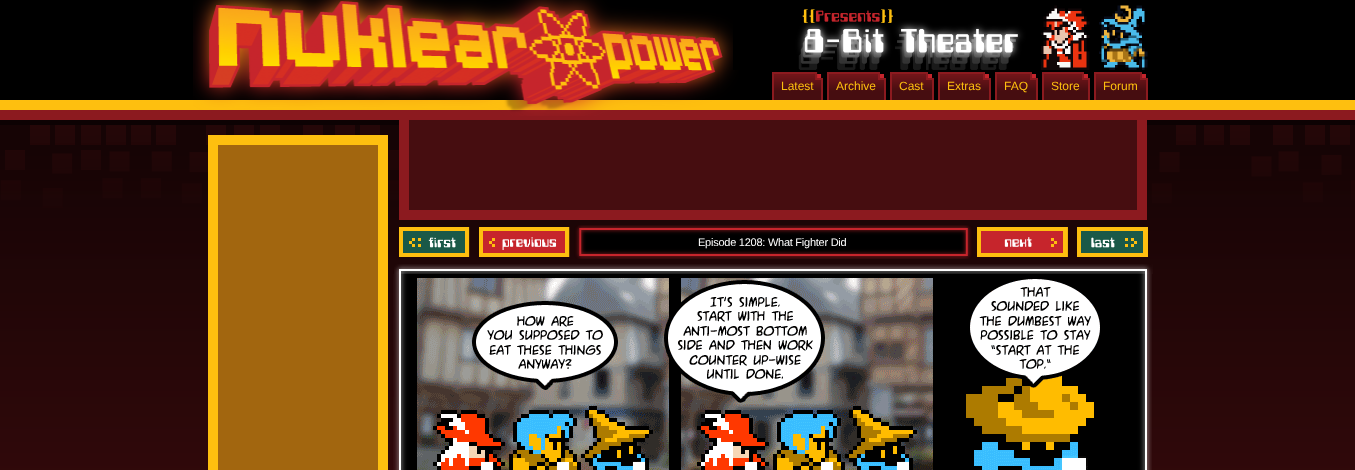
<svg xmlns="http://www.w3.org/2000/svg" width="1355" height="470">
<rect width="100%" height="100%" fill="#fff"/>
<image x="0" y="0" width="1355" height="470" href="media/1.png"/>
<image x="193" y="0" width="546" height="116" href="media/2.png"/>
<image x="733" y="5" width="415" height="65" href="media/3.png"/>
<image x="774" y="72" width="49" height="28" href="media/4.png"/>
<rect x="772" y="72" width="2" height="28" fill="#8c1a1f"/>
<text x="781" y="90" style="font-family:Liberation Sans;font-size:12px;fill:#febf0f">Latest</text>
<image x="829" y="72" width="57" height="28" href="media/5.png"/>
<rect x="827" y="72" width="2" height="28" fill="#8c1a1f"/>
<text x="836" y="90" style="font-family:Liberation Sans;font-size:12px;fill:#febf0f">Archive</text>
<image x="892" y="72" width="42" height="28" href="media/6.png"/>
<rect x="890" y="72" width="2" height="28" fill="#8c1a1f"/>
<text x="899" y="90" style="font-family:Liberation Sans;font-size:12px;fill:#febf0f">Cast</text>
<image x="940" y="72" width="51" height="28" href="media/7.png"/>
<rect x="938" y="72" width="2" height="28" fill="#8c1a1f"/>
<text x="947" y="90" style="font-family:Liberation Sans;font-size:12px;fill:#febf0f">Extras</text>
<image x="997" y="72" width="41" height="28" href="media/8.png"/>
<rect x="995" y="72" width="2" height="28" fill="#8c1a1f"/>
<text x="1004" y="90" style="font-family:Liberation Sans;font-size:12px;fill:#febf0f">FAQ</text>
<image x="1044" y="72" width="46" height="28" href="media/9.png"/>
<rect x="1042" y="72" width="2" height="28" fill="#8c1a1f"/>
<text x="1051" y="90" style="font-family:Liberation Sans;font-size:12px;fill:#febf0f">Store</text>
<image x="1096" y="72" width="52" height="28" href="media/10.png"/>
<rect x="1094" y="72" width="2" height="28" fill="#8c1a1f"/>
<text x="1103" y="90" style="font-family:Liberation Sans;font-size:12px;fill:#febf0f">Forum</text>
<rect x="213" y="140" width="170" height="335" fill="#a2660f" stroke="#febf0f" stroke-width="10"/>
<rect x="409" y="120" width="728" height="90" fill="#460d10"/>
<rect x="1137" y="120" width="10" height="90" fill="#8c1a1f"/>
<rect x="409" y="210" width="738" height="10" fill="#8c1a1f"/>
<rect x="399" y="120" width="10" height="100" fill="#8c1a1f"/>
<image x="399" y="225" width="749" height="34" href="media/11.png"/>
<image x="403" y="231" width="63" height="22" href="media/12.png"/>
<image x="479" y="227" width="87" height="30" href="media/13.png"/>
<text x="698" y="246" style="font-family:Liberation Sans;font-size:11px;letter-spacing:-0.25px;fill:#fff">Episode 1208: What Fighter Did</text>
<image x="977" y="227" width="87" height="30" href="media/14.png"/>
<image x="1077" y="227" width="67" height="30" href="media/15.png"/>
<image x="394" y="264" width="759" height="10" href="media/16.png"/>
<image x="393" y="274" width="759" height="196" href="media/17.png"/>
<image x="417" y="278" width="683" height="192" href="media/18.png"/>
</svg>
